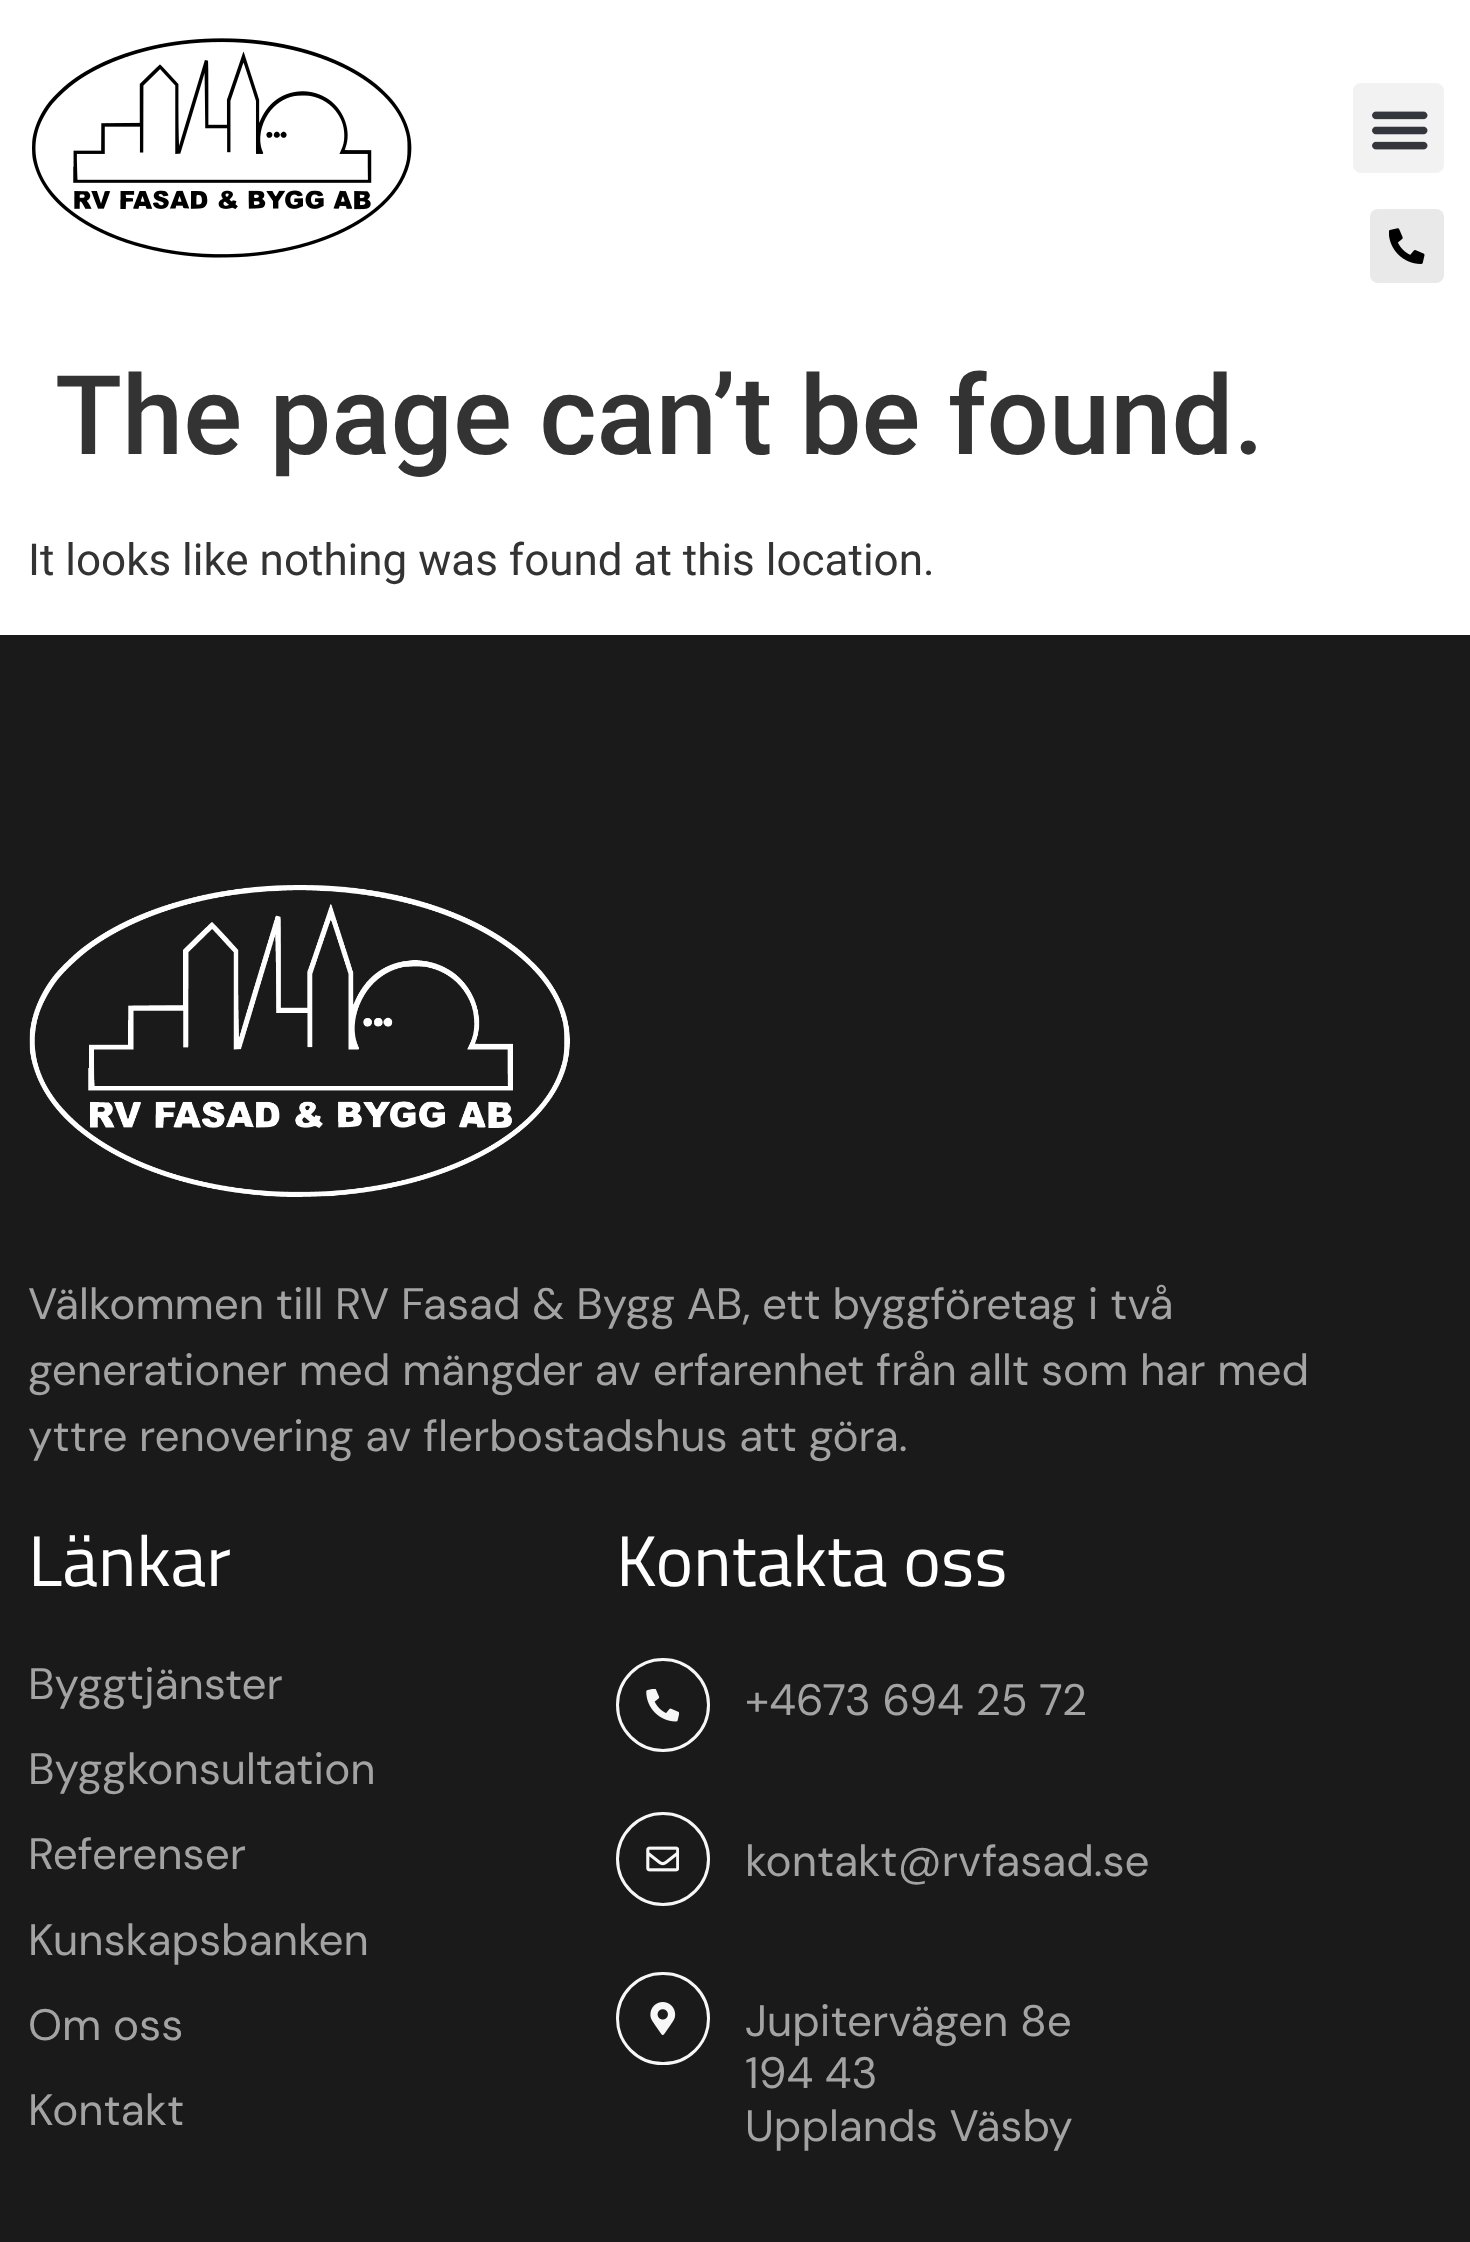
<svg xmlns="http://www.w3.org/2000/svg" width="1470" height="2242">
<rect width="100%" height="100%" fill="#fff"/>
<image x="32" y="38" width="380" height="220" href="media/1.png"/>
<rect x="1353" y="83" width="91" height="90" rx="8" fill="#f2f2f2"/>
<image x="1372" y="111" width="56" height="39" href="media/2.png"/>
<rect x="1370" y="209" width="74" height="74" rx="8" fill="#e9e9e9"/>
<image x="1389" y="228" width="36" height="36" href="media/3.png"/>
<text x="55" y="454" style="font-family:Roboto;font-size:110px;font-weight:500;fill:#333">The page can’t be found.</text>
<text x="28" y="575" style="font-family:Roboto;font-size:44px;fill:#333">It looks like nothing was found at this location.</text>
<rect y="635" width="1470" height="1607" fill="#1a1a1a"/>
<image x="29" y="885" width="541" height="312" href="media/4.png"/>
<text x="28" y="1319" style="font-family:DM Sans;font-size:44px;fill:#a3a3a3">Välkommen till RV Fasad &amp; Bygg AB, ett byggföretag i två</text>
<text x="28" y="1385" style="font-family:DM Sans;font-size:44px;fill:#a3a3a3">generationer med mängder av erfarenhet från allt som har med</text>
<text x="28" y="1451" style="font-family:DM Sans;font-size:44px;fill:#a3a3a3">yttre renovering av flerbostadshus att göra.</text>
<text x="28" y="1586" style="font-family:Titillium Web;font-size:71.5px;fill:#fff">Länkar</text>
<text x="28" y="1699" style="font-family:DM Sans;font-size:44px;fill:#a3a3a3">Byggtjänster</text>
<text x="28" y="1784" style="font-family:DM Sans;font-size:44px;fill:#a3a3a3">Byggkonsultation</text>
<text x="28" y="1869" style="font-family:DM Sans;font-size:44px;fill:#a3a3a3">Referenser</text>
<text x="28" y="1955" style="font-family:DM Sans;font-size:44px;fill:#a3a3a3">Kunskapsbanken</text>
<text x="28" y="2040" style="font-family:DM Sans;font-size:44px;fill:#a3a3a3">Om oss</text>
<text x="28" y="2125" style="font-family:DM Sans;font-size:44px;fill:#a3a3a3">Kontakt</text>
<text x="616" y="1586" style="font-family:Titillium Web;font-size:71.5px;fill:#fff">Kontakta oss</text>
<circle cx="663" cy="1705" r="45.5" fill="none" stroke="#f7f7f7" stroke-width="3"/>
<image x="646" y="1689" width="33" height="33" href="media/5.png"/>
<text x="745" y="1715" style="font-family:DM Sans;font-size:44px;fill:#a3a3a3">+4673 694 25 72</text>
<circle cx="663" cy="1859" r="45.5" fill="none" stroke="#f7f7f7" stroke-width="3"/>
<image x="646" y="1846" width="33" height="26" href="media/6.png"/>
<text x="745" y="1876" style="font-family:DM Sans;font-size:44px;fill:#a3a3a3">kontakt@rvfasad.se</text>
<rect x="617.5" y="1973.5" width="91" height="90" rx="45" fill="none" stroke="#f7f7f7" stroke-width="3"/>
<image x="650" y="2002" width="26" height="33" href="media/7.png"/>
<text x="745" y="2036" style="font-family:DM Sans;font-size:44px;fill:#a3a3a3">Jupitervägen 8e</text>
<text x="745" y="2088" style="font-family:DM Sans;font-size:44px;fill:#a3a3a3">194 43</text>
<text x="745" y="2141" style="font-family:DM Sans;font-size:44px;fill:#a3a3a3">Upplands Väsby</text>
</svg>
